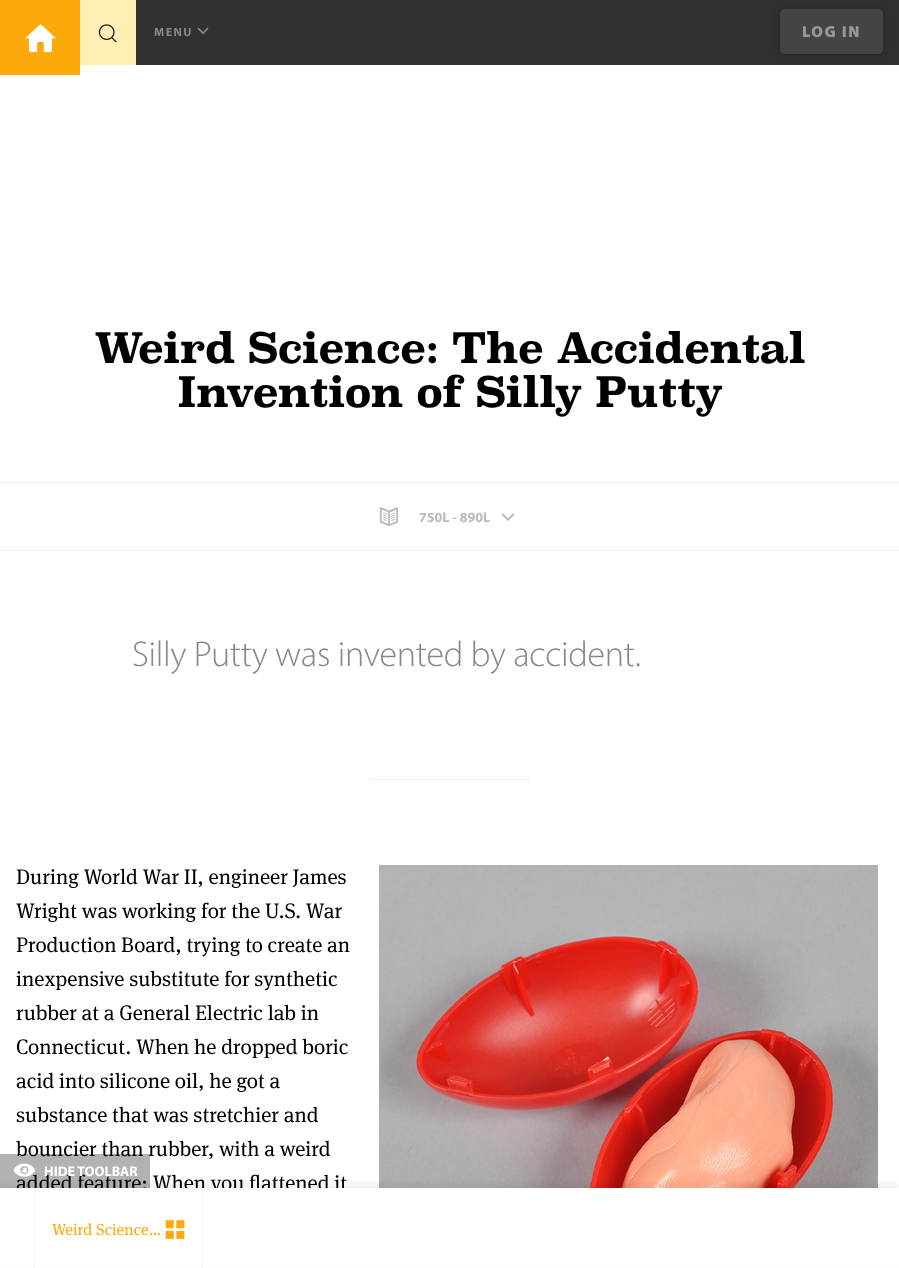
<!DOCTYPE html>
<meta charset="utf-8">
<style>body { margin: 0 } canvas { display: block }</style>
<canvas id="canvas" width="899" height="1268"></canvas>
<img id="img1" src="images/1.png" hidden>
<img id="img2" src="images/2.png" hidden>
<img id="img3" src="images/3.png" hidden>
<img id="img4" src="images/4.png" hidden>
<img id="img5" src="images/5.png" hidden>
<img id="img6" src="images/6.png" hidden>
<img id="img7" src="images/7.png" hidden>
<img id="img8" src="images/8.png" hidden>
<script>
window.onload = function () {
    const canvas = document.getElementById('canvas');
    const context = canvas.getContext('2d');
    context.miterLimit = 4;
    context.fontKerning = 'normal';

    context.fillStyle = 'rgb(255, 255, 255)';
    context.fillRect(0, 0, 899, 1268);
    context.fillStyle = 'rgb(49, 49, 49)';
    context.fillRect(136, 0, 763, 65);
    context.fillStyle = 'rgb(251, 169, 11)';
    context.fillRect(0, 0, 80, 75);
    context.drawImage(document.getElementById('img1'), 25, 24, 31, 28);
    context.fillStyle = 'rgb(255, 239, 181)';
    context.fillRect(80, 0, 56, 65);
    context.drawImage(document.getElementById('img2'), 98, 24, 19, 19);
    context.drawImage(document.getElementById('img3'), 197, 27, 12, 8);
    context.fillStyle = 'rgba(34, 34, 34, 0.9)';
    context.filter = 'blur(3px)';
    context.beginPath();
    context.roundRect(780, 9, 103, 45, 5);
    context.fill();
    context.filter = 'none';
    context.fillStyle = 'rgb(68, 68, 68)';
    context.beginPath();
    context.roundRect(780, 9, 103, 45, 5);
    context.fill();
    context.fillStyle = 'rgb(238, 238, 238)';
    context.fillRect(0, 482, 899, 1);
    context.fillRect(0, 550, 899, 1);
    context.drawImage(document.getElementById('img4'), 379, 507, 20, 20);
    context.drawImage(document.getElementById('img5'), 501, 513, 14, 8);
    context.fillRect(370, 779, 160, 1);
    context.drawImage(document.getElementById('img6'), 379, 865, 499, 323);
    context.fillStyle = 'rgba(0, 0, 0, 0.05)';
    context.filter = 'blur(2.5px)';
    context.beginPath();
    context.rect(0, 1183, 899, 80);
    context.fill();
    context.filter = 'none';
    context.letterSpacing = '1.5px';
    context.font = 'bold 12px Myriad';
    context.fillStyle = 'rgb(136, 136, 136)';
    context.fillText('MENU', 154, 36);
    context.font = '900 16px Myriad';
    context.fillStyle = 'rgb(153, 153, 153)';
    context.fillText('LOG IN', 802, 37);
    context.letterSpacing = '-1.05px';
    context.font = 'bold 42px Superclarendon';
    context.fillStyle = 'rgb(0, 0, 0)';
    context.fillText('Weird Science: The Accidental', 94, 363);
    context.fillText('Invention of Silly Putty', 177, 407);
    context.letterSpacing = '0px';
    context.font = 'bold 14px Myriad';
    context.fillStyle = 'rgb(187, 187, 187)';
    context.fillText('750L - 890L', 419, 522);
    context.letterSpacing = '-0.25px';
    context.font = '300 36px Myriad';
    context.fillStyle = 'rgb(136, 136, 136)';
    context.fillText('Silly Putty was invented by accident.', 132, 666);
    context.letterSpacing = '0px';
    context.font = '21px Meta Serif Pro';
    context.fillStyle = 'rgb(0, 0, 0)';
    context.fillText('During World War II, engineer James', 16, 884);
    context.fillText('Wright was working for the U.S. War', 16, 918);
    context.fillText('Production Board, trying to create an', 16, 952);
    context.fillText('inexpensive substitute for synthetic', 16, 986);
    context.fillText('rubber at a General Electric lab in', 16, 1020);
    context.fillText('Connecticut. When he dropped boric', 16, 1054);
    context.fillText('acid into silicone oil, he got a', 16, 1088);
    context.fillText('substance that was stretchier and', 16, 1122);
    context.fillText('bouncier than rubber, with a weird', 16, 1156);
    context.fillText('added feature: When you flattened it', 16, 1190);
    context.fillStyle = 'rgb(255, 255, 255)';
    context.fillRect(0, 1188, 899, 77);
    context.fillStyle = 'rgba(0, 0, 0, 0.3)';
    context.fillRect(0, 1154, 150, 34);
    context.drawImage(document.getElementById('img7'), 13, 1163, 23, 14);
    context.font = 'bold 14px Myriad';
    context.fillStyle = 'rgb(255, 255, 255)';
    context.fillText('HIDE TOOLBAR', 44, 1176);
    context.fillStyle = 'rgb(244, 244, 244)';
    context.fillRect(34, 1188, 1, 80);
    context.fillRect(202, 1188, 1, 80);
    context.font = '16px Meta Serif Pro';
    context.fillStyle = 'rgb(251, 169, 11)';
    context.fillText('Weird Science…', 52, 1235);
    context.drawImage(document.getElementById('img8'), 165, 1220, 20, 19);
};
</script>
